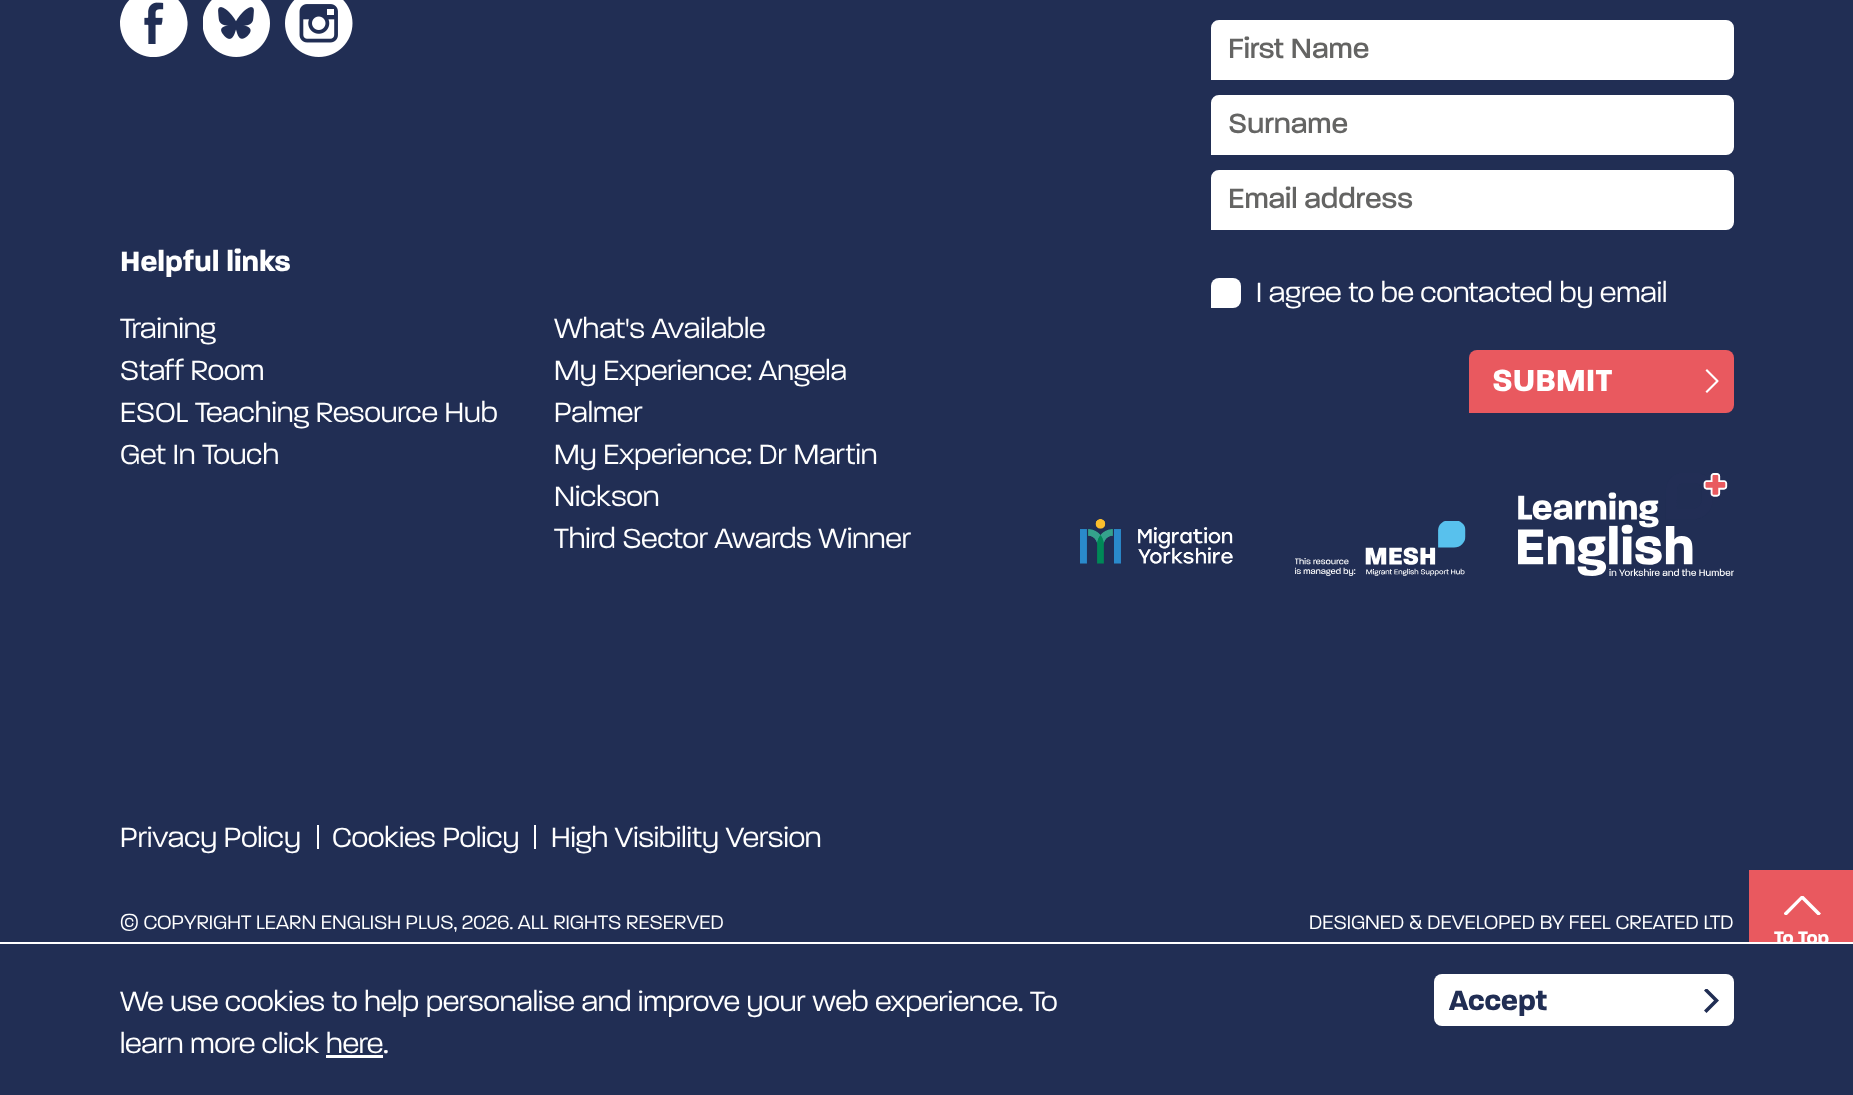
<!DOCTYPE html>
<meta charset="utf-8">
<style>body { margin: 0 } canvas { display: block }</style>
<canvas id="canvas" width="1853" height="1095"></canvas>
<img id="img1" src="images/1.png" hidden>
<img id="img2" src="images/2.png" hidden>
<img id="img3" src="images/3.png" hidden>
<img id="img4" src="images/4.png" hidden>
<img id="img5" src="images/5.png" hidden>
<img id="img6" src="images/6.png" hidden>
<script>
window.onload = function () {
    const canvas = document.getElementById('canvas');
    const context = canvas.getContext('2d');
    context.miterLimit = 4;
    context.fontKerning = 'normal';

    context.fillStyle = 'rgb(33, 46, 84)';
    context.fillRect(0, 0, 1853, 1095);
    context.drawImage(document.getElementById('img1'), 120, 0, 68, 57);
    context.drawImage(document.getElementById('img2'), 203, 0, 67, 57);
    context.drawImage(document.getElementById('img3'), 285, 0, 68, 57);
    context.fillStyle = 'rgb(255, 255, 255)';
    context.beginPath();
    context.roundRect(1212, 21, 521, 58, [7, 7, 7, 0]);
    context.fill();
    context.strokeStyle = 'rgb(255, 255, 255)';
    context.lineWidth = 2;
    context.stroke();
    context.beginPath();
    context.roundRect(1212, 96, 521, 58, [7, 7, 7, 0]);
    context.fill();
    context.stroke();
    context.beginPath();
    context.roundRect(1212, 171, 521, 58, [7, 7, 7, 0]);
    context.fill();
    context.stroke();
    context.beginPath();
    context.roundRect(1211, 278, 30, 30, [8, 8, 8, 0]);
    context.fill();
    context.fillStyle = 'rgb(233, 89, 95)';
    context.beginPath();
    context.roundRect(1469, 350, 265, 63, [8, 8, 8, 0]);
    context.fill();
    context.fillStyle = 'rgb(255, 255, 255)';
    context.beginPath();
    context.moveTo(1707, 393);
    context.lineTo(1705.5, 391.5);
    context.lineTo(1716, 381);
    context.lineTo(1705.5, 370.5);
    context.lineTo(1707, 369);
    context.lineTo(1718.5, 380.5);
    context.lineTo(1718.5, 381.5);
    context.closePath();
    context.fill();
    context.drawImage(document.getElementById('img4'), 1080, 518, 153, 46);
    context.drawImage(document.getElementById('img5'), 1295, 521, 171, 55);
    context.drawImage(document.getElementById('img6'), 1518, 473, 216, 103);
    context.fillRect(317, 825, 2, 24);
    context.fillRect(534, 825, 2, 24);
    context.fillStyle = 'rgb(233, 89, 95)';
    context.fillRect(1749, 870, 104, 72);
    context.save();
    context.beginPath();
    context.rect(1784, 896, 37, 19);
    context.clip();
    context.fillStyle = 'rgb(255, 255, 255)';
    context.beginPath();
    context.moveTo(1821, 913.5);
    context.lineTo(1818.5, 916);
    context.lineTo(1802, 899.5);
    context.lineTo(1786, 916);
    context.lineTo(1783.5, 913.5);
    context.lineTo(1801.5, 895.5);
    context.lineTo(1803, 895.5);
    context.closePath();
    context.fill();
    context.restore();
    context.fillStyle = 'rgb(255, 255, 255)';
    context.fillRect(0, 942, 1853, 2);
    context.fillRect(326, 1055, 57, 3);
    context.beginPath();
    context.roundRect(1434, 974, 300, 52, 8);
    context.fill();
    context.save();
    context.beginPath();
    context.rect(1704, 989, 15, 24);
    context.clip();
    context.fillStyle = 'rgb(33, 46, 84)';
    context.beginPath();
    context.moveTo(1706.5, 988);
    context.lineTo(1704, 990.5);
    context.lineTo(1714, 1000.5);
    context.lineTo(1704, 1010.5);
    context.lineTo(1706.5, 1013);
    context.lineTo(1719, 1000.5);
    context.lineTo(1716.5, 998);
    context.closePath();
    context.fill();
    context.restore();
    context.font = 'bold 30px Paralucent';
    context.fillText('Helpful links', 120, 271);
    context.font = '300 30px Paralucent';
    context.fillText('Training', 120, 338);
    context.fillText('Staff Room', 120, 380);
    context.fillText('ESOL Teaching Resource Hub', 120, 422);
    context.fillText('Get In Touch', 120, 464);
    context.fillText('What\'s Available', 554, 338);
    context.fillText('My Experience: Angela', 554, 380);
    context.fillText('Palmer', 554, 422);
    context.fillText('My Experience: Dr Martin', 554, 464);
    context.fillText('Nickson', 554, 506);
    context.fillText('Third Sector Awards Winner', 554, 548);
    context.font = '500 30px Paralucent';
    context.fillStyle = 'rgb(100, 100, 99)';
    context.fillText('First Name', 1228, 58);
    context.fillText('Surname', 1228, 133);
    context.fillText('Email address', 1228, 208);
    context.font = '300 30px Paralucent';
    context.fillStyle = 'rgb(255, 255, 255)';
    context.fillText('I agree to be contacted by email', 1256, 302);
    context.font = 'bold 33px Paralucent';
    context.fillText('SUBMIT', 1492, 391);
    context.font = '300 30px Paralucent';
    context.fillText('Privacy Policy', 120, 847);
    context.fillText('Cookies Policy', 332, 847);
    context.fillText('High Visibility Version', 551, 847);
    context.font = '300 21px Paralucent';
    context.fillText('© COPYRIGHT LEARN ENGLISH PLUS, 2026. ALL RIGHTS RESERVED', 120, 929);
    context.fillText('DESIGNED & DEVELOPED BY FEEL CREATED LTD', 1309, 929);
    context.font = 'bold 19.5px Paralucent';
    context.fillText('To Top', 1774, 944);
    context.fillStyle = 'rgb(33, 46, 84)';
    context.fillRect(1786, 944, 40, 4);
    context.font = '300 30px Paralucent';
    context.fillStyle = 'rgb(255, 255, 255)';
    context.fillText('We use cookies to help personalise and improve your web experience. To', 120, 1011);
    context.fillText('learn more click here.', 120, 1053);
    context.font = 'bold 30px Paralucent';
    context.fillStyle = 'rgb(33, 46, 84)';
    context.fillText('Accept', 1449, 1010);
};
</script>
